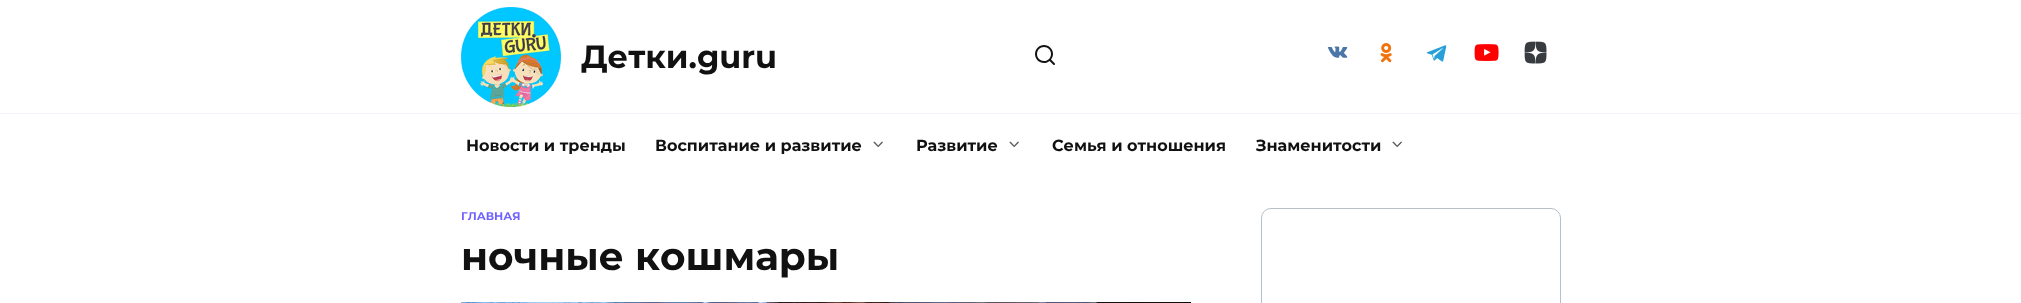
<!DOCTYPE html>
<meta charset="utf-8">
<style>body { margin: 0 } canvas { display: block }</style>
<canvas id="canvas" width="2021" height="303"></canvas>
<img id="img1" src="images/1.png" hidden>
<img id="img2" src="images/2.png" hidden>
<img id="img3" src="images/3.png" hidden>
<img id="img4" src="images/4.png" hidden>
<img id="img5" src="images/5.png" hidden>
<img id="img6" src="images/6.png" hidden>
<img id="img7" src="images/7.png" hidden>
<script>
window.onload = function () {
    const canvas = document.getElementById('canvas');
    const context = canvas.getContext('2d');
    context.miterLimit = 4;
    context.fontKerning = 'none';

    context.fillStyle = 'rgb(255, 255, 255)';
    context.fillRect(0, 0, 2021, 303);
    context.fillStyle = 'rgb(242, 245, 249)';
    context.fillRect(0, 113, 2021, 1);
    context.drawImage(document.getElementById('img1'), 461, 7, 100, 100);
    context.drawImage(document.getElementById('img2'), 1327, 46, 21, 12);
    context.drawImage(document.getElementById('img3'), 1380, 43, 12, 20);
    context.drawImage(document.getElementById('img4'), 1426, 45, 21, 17);
    context.drawImage(document.getElementById('img5'), 1474, 44, 25, 17);
    context.drawImage(document.getElementById('img6'), 1524, 41, 23, 23);
    context.drawImage(document.getElementById('img7'), 461, 302, 730, 1);
    context.beginPath();
    context.roundRect(1261.5, 208.5, 299, 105, 9.5);
    context.strokeStyle = 'rgb(181, 192, 200)';
    context.stroke();
    context.font = 'bold 32px Montserrat';
    context.fillStyle = 'rgb(17, 17, 17)';
    context.fillText('Детки.guru', 581, 68);
    context.font = '24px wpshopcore';
    context.fillText('🔍', 1033, 65);
    context.font = 'bold 16px Montserrat';
    context.fillText('Новости и тренды', 466, 151);
    context.fillText('Воспитание и развитие', 655, 151);
    context.font = '16px wpshopcore';
    context.fillStyle = 'rgb(88, 88, 88)';
    context.fillText('﹀', 870, 151);
    context.font = 'bold 16px Montserrat';
    context.fillStyle = 'rgb(17, 17, 17)';
    context.fillText('Развитие', 916, 151);
    context.font = '16px wpshopcore';
    context.fillStyle = 'rgb(88, 88, 88)';
    context.fillText('﹀', 1006, 151);
    context.font = 'bold 16px Montserrat';
    context.fillStyle = 'rgb(17, 17, 17)';
    context.fillText('Семья и отношения', 1052, 151);
    context.fillText('Знаменитости', 1256, 151);
    context.font = '16px wpshopcore';
    context.fillStyle = 'rgb(88, 88, 88)';
    context.fillText('﹀', 1389, 151);
    context.font = 'bold 11.25px Montserrat';
    context.fillStyle = 'rgb(113, 98, 254)';
    context.fillText('ГЛАВНАЯ', 461, 220);
    context.font = 'bold 39px Montserrat';
    context.fillStyle = 'rgb(17, 17, 17)';
    context.fillText('ночные кошмары', 461, 270);
};
</script>
